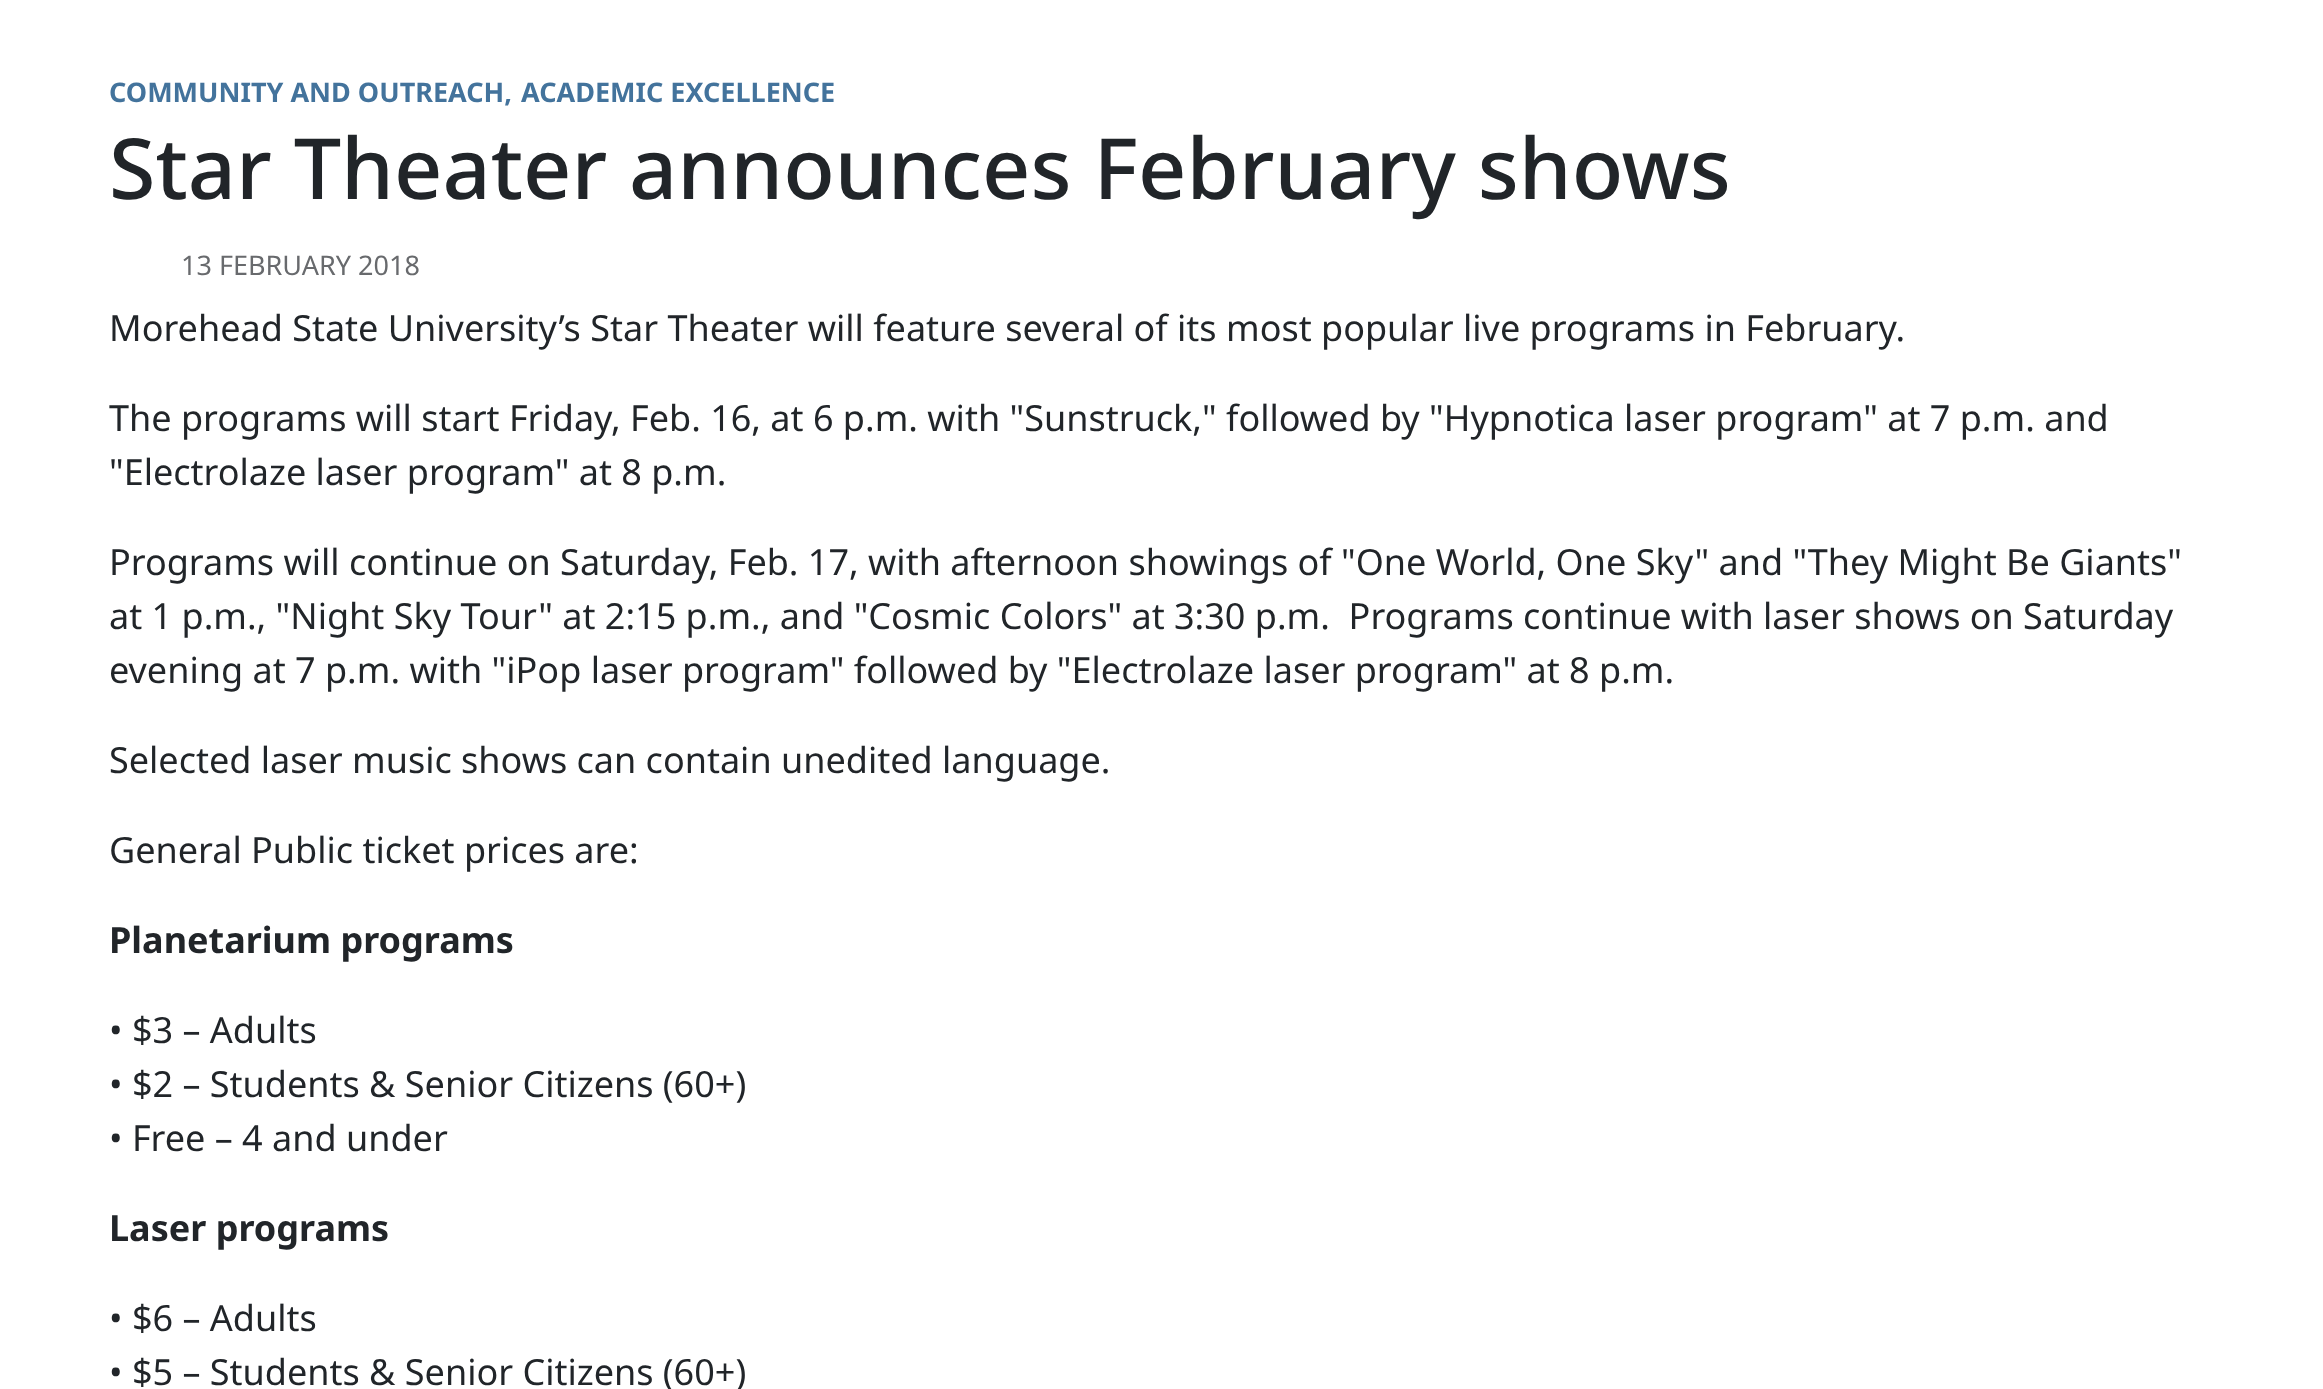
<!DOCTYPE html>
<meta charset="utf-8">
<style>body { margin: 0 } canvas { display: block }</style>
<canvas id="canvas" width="2323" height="1389"></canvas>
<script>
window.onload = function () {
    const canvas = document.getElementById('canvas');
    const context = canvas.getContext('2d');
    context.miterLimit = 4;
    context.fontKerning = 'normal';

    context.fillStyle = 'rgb(255, 255, 255)';
    context.fillRect(0, 0, 2323, 1389);
    context.font = 'bold 27px Noto Sans';
    context.fillStyle = 'rgb(67, 115, 156)';
    context.fillText('COMMUNITY AND OUTREACH,', 109, 102);
    context.fillText('ACADEMIC EXCELLENCE', 521, 102);
    context.font = '500 84.4px Noto Sans';
    context.fillStyle = 'rgb(33, 37, 41)';
    context.fillText('Star Theater announces February shows', 109, 199);
    context.font = '27px Noto Sans';
    context.fillStyle = 'rgb(104, 106, 109)';
    context.fillText('13 FEBRUARY 2018', 181, 275);
    context.font = '36px Noto Sans';
    context.fillStyle = 'rgb(33, 37, 41)';
    context.fillText('Morehead State University’s Star Theater will feature several of its most popular live programs in February.', 109, 341);
    context.fillText('The programs will start Friday, Feb. 16, at 6 p.m. with "Sunstruck," followed by "Hypnotica laser program" at 7 p.m. and', 109, 431);
    context.fillText('"Electrolaze laser program" at 8 p.m.', 109, 485);
    context.fillText('Programs will continue on Saturday, Feb. 17, with afternoon showings of "One World, One Sky" and "They Might Be Giants"', 109, 575);
    context.fillText('at 1 p.m., "Night Sky Tour" at 2:15 p.m., and "Cosmic Colors" at 3:30 p.m.  Programs continue with laser shows on Saturday', 109, 629);
    context.fillText('evening at 7 p.m. with "iPop laser program" followed by "Electrolaze laser program" at 8 p.m.', 109, 683);
    context.fillText('Selected laser music shows can contain unedited language.', 109, 773);
    context.fillText('General Public ticket prices are:', 109, 863);
    context.font = 'bold 36px Noto Sans';
    context.fillText('Planetarium programs', 109, 953);
    context.font = '36px Noto Sans';
    context.fillText('• $3 – Adults', 109, 1043);
    context.fillText('• $2 – Students & Senior Citizens (60+)', 109, 1097);
    context.fillText('• Free – 4 and under', 109, 1151);
    context.font = 'bold 36px Noto Sans';
    context.fillText('Laser programs', 109, 1241);
    context.font = '36px Noto Sans';
    context.fillText('• $6 – Adults', 109, 1331);
    context.fillText('• $5 – Students & Senior Citizens (60+)', 109, 1385);
};
</script>
